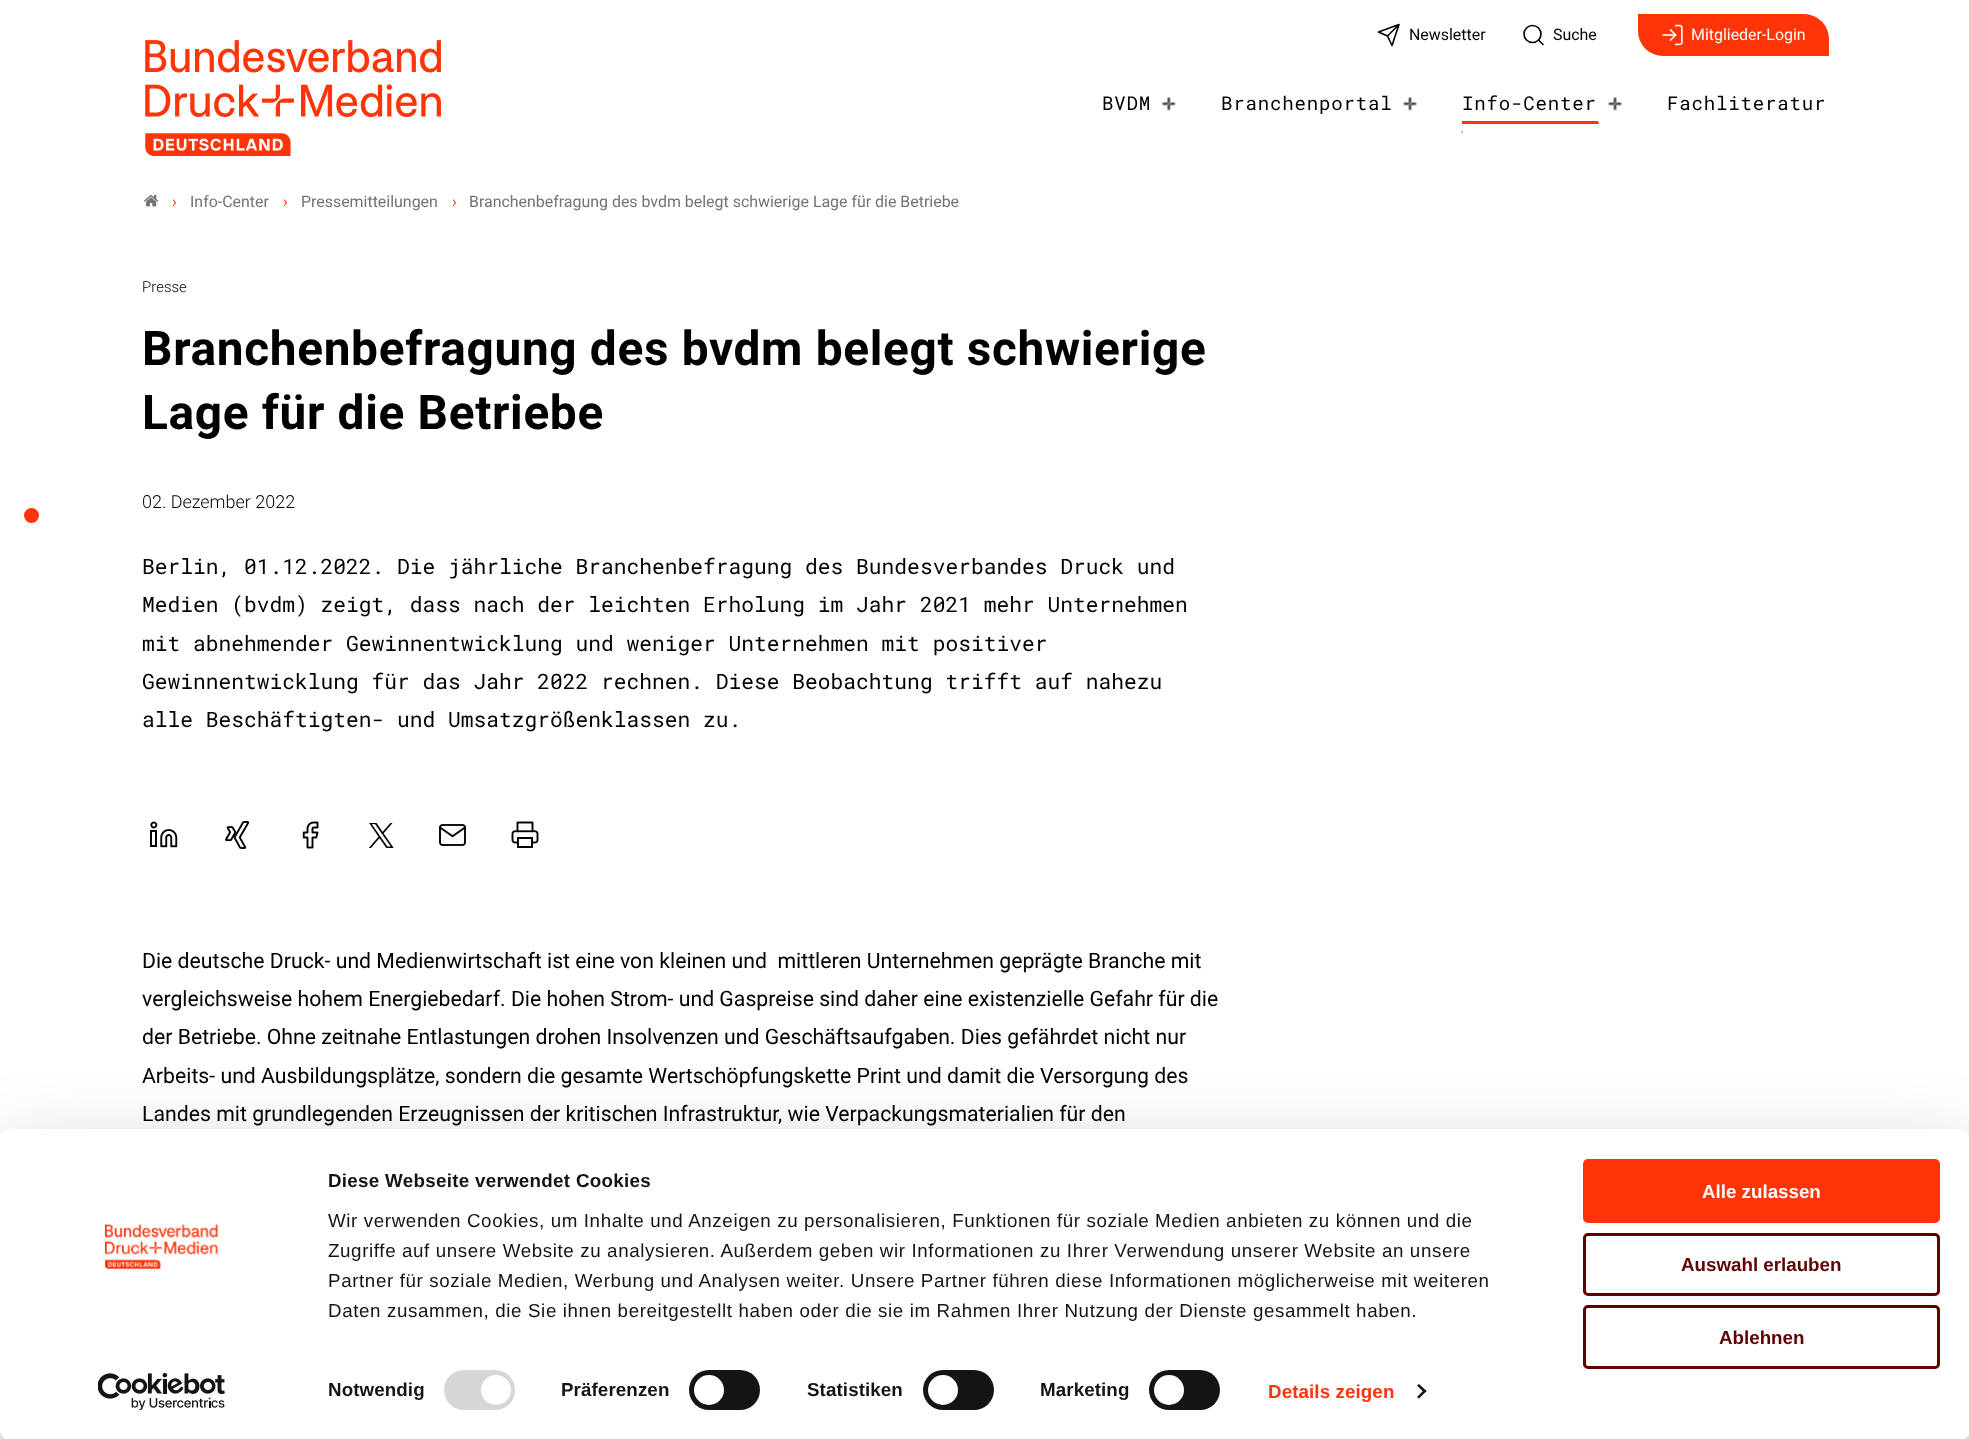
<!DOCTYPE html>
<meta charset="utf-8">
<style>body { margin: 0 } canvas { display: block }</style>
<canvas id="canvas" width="1969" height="1439"></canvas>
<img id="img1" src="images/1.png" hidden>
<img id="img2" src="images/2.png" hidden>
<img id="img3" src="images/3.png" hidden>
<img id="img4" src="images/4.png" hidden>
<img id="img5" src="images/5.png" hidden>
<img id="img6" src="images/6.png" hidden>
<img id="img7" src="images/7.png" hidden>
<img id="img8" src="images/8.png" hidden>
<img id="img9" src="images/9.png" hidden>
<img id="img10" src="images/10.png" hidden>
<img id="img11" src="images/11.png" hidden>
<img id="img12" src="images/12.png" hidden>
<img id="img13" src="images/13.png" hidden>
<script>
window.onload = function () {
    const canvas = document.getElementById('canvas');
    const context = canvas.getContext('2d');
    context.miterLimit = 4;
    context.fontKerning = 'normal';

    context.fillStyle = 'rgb(255, 255, 255)';
    context.fillRect(0, 0, 1969, 1439);
    context.drawImage(document.getElementById('img1'), 145, 40, 296, 116);
    context.beginPath();
    context.moveTo(1399, 24.5);
    context.lineTo(1387.5, 36);
    context.moveTo(1399, 24.5);
    context.lineTo(1392, 45.5);
    context.lineTo(1387.5, 36);
    context.lineTo(1378.5, 32);
    context.closePath();
    context.strokeStyle = 'rgb(0, 0, 0)';
    context.lineWidth = 1.6;
    context.lineCap = 'round';
    context.lineJoin = 'round';
    context.stroke();
    context.beginPath();
    context.arc(1532.5, 34, 8.5, 0, 2 * Math.PI);
    context.stroke();
    context.beginPath();
    context.moveTo(1543, 44.5);
    context.lineTo(1538.5, 40);
    context.stroke();
    context.fillStyle = 'rgb(255, 52, 9)';
    context.beginPath();
    context.roundRect(1638, 14, 191, 42, [0, 25, 0, 25]);
    context.fill();
    context.drawImage(document.getElementById('img2'), 1662, 24, 21, 22);
    context.drawImage(document.getElementById('img3'), 1162, 97, 14, 14);
    context.drawImage(document.getElementById('img4'), 1403, 97, 14, 14);
    context.beginPath();
    context.moveTo(1462.5, 132.5);
    context.lineTo(1461, 132.5);
    context.lineTo(1462.5, 130);
    context.closePath();
    context.fill();
    context.beginPath();
    context.moveTo(1599, 124);
    context.lineTo(1462, 124);
    context.lineTo(1462, 121);
    context.lineTo(1598, 121);
    context.closePath();
    context.fill();
    context.drawImage(document.getElementById('img4'), 1608, 97, 14, 14);
    context.drawImage(document.getElementById('img5'), 144, 195, 15, 12);
    context.beginPath();
    context.arc(31.5, 515.5, 7.5, 0, 2 * Math.PI);
    context.fill();
    context.drawImage(document.getElementById('img6'), 150, 821, 28, 27);
    context.drawImage(document.getElementById('img7'), 225, 821, 25, 28);
    context.drawImage(document.getElementById('img8'), 302, 821, 17, 28);
    context.drawImage(document.getElementById('img9'), 369, 823, 25, 25);
    context.drawImage(document.getElementById('img10'), 439, 824, 27, 22);
    context.drawImage(document.getElementById('img11'), 511, 821, 28, 27);
    context.fillStyle = 'rgba(0, 0, 0, 0.3)';
    context.filter = 'blur(44px)';
    context.beginPath();
    context.roundRect(0, 1166, 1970, 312, 10);
    context.fill();
    context.filter = 'none';
    context.fillStyle = 'rgb(255, 255, 255)';
    context.beginPath();
    context.roundRect(0, 1129, 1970, 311, 10);
    context.fill();
    context.drawImage(document.getElementById('img12'), 105, 1223, 113, 47);
    context.drawImage(document.getElementById('img13'), 98, 1373, 127, 37);
    context.fillStyle = 'rgb(214, 214, 214)';
    context.beginPath();
    context.roundRect(444, 1370, 71, 40, 20);
    context.fill();
    context.fillStyle = 'rgb(255, 255, 255)';
    context.beginPath();
    context.arc(496, 1390, 15, 0, 2 * Math.PI);
    context.fill();
    context.fillStyle = 'rgb(20, 20, 20)';
    context.beginPath();
    context.roundRect(689, 1370, 71, 40, 20);
    context.fill();
    context.fillStyle = 'rgb(255, 255, 255)';
    context.beginPath();
    context.arc(709, 1390, 15, 0, 2 * Math.PI);
    context.fill();
    context.fillStyle = 'rgb(20, 20, 20)';
    context.beginPath();
    context.roundRect(923, 1370, 71, 40, 20);
    context.fill();
    context.fillStyle = 'rgb(255, 255, 255)';
    context.beginPath();
    context.arc(943, 1390, 15, 0, 2 * Math.PI);
    context.fill();
    context.fillStyle = 'rgb(20, 20, 20)';
    context.beginPath();
    context.roundRect(1149, 1370, 71, 40, 20);
    context.fill();
    context.fillStyle = 'rgb(255, 255, 255)';
    context.beginPath();
    context.arc(1169, 1390, 15, 0, 2 * Math.PI);
    context.fill();
    context.fillStyle = 'rgb(20, 20, 20)';
    context.beginPath();
    context.moveTo(1419, 1384);
    context.lineTo(1426.5, 1391);
    context.lineTo(1424.5, 1393);
    context.lineTo(1417, 1385.5);
    context.closePath();
    context.fill();
    context.beginPath();
    context.moveTo(1424.5, 1389.5);
    context.lineTo(1426.5, 1391);
    context.lineTo(1419, 1398.5);
    context.lineTo(1417, 1397);
    context.closePath();
    context.fill();
    context.fillStyle = 'rgb(255, 52, 9)';
    context.beginPath();
    context.roundRect(1584.5, 1160.5, 354, 61, 3.5);
    context.fill();
    context.strokeStyle = 'rgb(255, 52, 9)';
    context.lineWidth = 3;
    context.lineJoin = 'miter';
    context.stroke();
    context.beginPath();
    context.roundRect(1584.5, 1234.5, 354, 60, 3.5);
    context.strokeStyle = 'rgb(96, 0, 0)';
    context.stroke();
    context.beginPath();
    context.roundRect(1584.5, 1306.5, 354, 61, 3.5);
    context.stroke();
    context.font = '15.95px Roboto';
    context.fillStyle = 'rgb(0, 0, 0)';
    context.fillText('Newsletter', 1409, 40);
    context.fillText('Suche', 1553, 40);
    context.fillStyle = 'rgb(255, 255, 255)';
    context.fillText('Mitglieder-Login', 1691, 40);
    context.letterSpacing = '0.8px';
    context.font = '19.1px Roboto Mono';
    context.fillStyle = 'rgb(0, 0, 0)';
    context.fillText('BVDM', 1102, 110);
    context.fillText('Branchenportal', 1221, 110);
    context.fillText('Info-Center', 1462, 110);
    context.fillText('Fachliteratur', 1667, 110);
    context.letterSpacing = '0px';
    context.font = '15.95px Roboto';
    context.fillStyle = 'rgb(255, 52, 9)';
    context.fillText('›', 172, 207);
    context.fillStyle = 'rgb(115, 115, 115)';
    context.fillText('Info-Center', 190, 207);
    context.fillStyle = 'rgb(255, 52, 9)';
    context.fillText('›', 283, 207);
    context.fillStyle = 'rgb(115, 115, 115)';
    context.fillText('Pressemitteilungen', 301, 207);
    context.fillStyle = 'rgb(255, 52, 9)';
    context.fillText('›', 452, 207);
    context.fillStyle = 'rgb(115, 115, 115)';
    context.fillText('Branchenbefragung des bvdm belegt schwierige Lage für die Betriebe', 469, 207);
    context.font = '300 15px Roboto';
    context.fillStyle = 'rgb(0, 0, 0)';
    context.fillText('Presse', 142, 292);
    context.letterSpacing = '0.65px';
    context.font = 'bold 47.8px Roboto';
    context.fillText('Branchenbefragung des bvdm belegt schwierige', 142, 365);
    context.fillText('Lage für die Betriebe', 142, 429);
    context.letterSpacing = '0px';
    context.font = '300 18px Roboto';
    context.fillText('02. Dezember 2022', 142, 508);
    context.font = '21.25px Roboto Mono';
    context.fillText('Berlin, 01.12.2022. Die jährliche Branchenbefragung des Bundesverbandes Druck und', 142, 574);
    context.fillText('Medien (bvdm) zeigt, dass nach der leichten Erholung im Jahr 2021 mehr Unternehmen', 142, 612);
    context.fillText('mit abnehmender Gewinnentwicklung und weniger Unternehmen mit positiver', 142, 651);
    context.fillText('Gewinnentwicklung für das Jahr 2022 rechnen. Diese Beobachtung trifft auf nahezu', 142, 689);
    context.fillText('alle Beschäftigten- und Umsatzgrößenklassen zu.', 142, 727);
    context.font = '21.25px Roboto';
    context.fillText('Die deutsche Druck- und Medienwirtschaft ist eine von kleinen und  mittleren Unternehmen geprägte Branche mit', 142, 968);
    context.fillText('vergleichsweise hohem Energiebedarf. Die hohen Strom- und Gaspreise sind daher eine existenzielle Gefahr für die', 142, 1006);
    context.fillText('der Betriebe. Ohne zeitnahe Entlastungen drohen Insolvenzen und Geschäftsaufgaben. Dies gefährdet nicht nur', 142, 1044);
    context.fillText('Arbeits- und Ausbildungsplätze, sondern die gesamte Wertschöpfungskette Print und damit die Versorgung des', 142, 1083);
    context.fillText('Landes mit grundlegenden Erzeugnissen der kritischen Infrastruktur, wie Verpackungsmaterialien für den', 142, 1121);
    context.letterSpacing = '0.3px';
    context.font = 'bold 18.75px Liberation Sans';
    context.fillStyle = 'rgb(20, 20, 20)';
    context.fillText('Diese Webseite verwendet Cookies', 328, 1187);
    context.letterSpacing = '0.62px';
    context.font = '18.75px Liberation Sans';
    context.fillText('Wir verwenden Cookies, um Inhalte und Anzeigen zu personalisieren, Funktionen für soziale Medien anbieten zu können und die', 328, 1227);
    context.fillText('Zugriffe auf unsere Website zu analysieren. Außerdem geben wir Informationen zu Ihrer Verwendung unserer Website an unsere', 328, 1257);
    context.fillText('Partner für soziale Medien, Werbung und Analysen weiter. Unsere Partner führen diese Informationen möglicherweise mit weiteren', 328, 1287);
    context.fillText('Daten zusammen, die Sie ihnen bereitgestellt haben oder die sie im Rahmen Ihrer Nutzung der Dienste gesammelt haben.', 328, 1317);
    context.letterSpacing = '0.1px';
    context.font = 'bold 18.75px Liberation Sans';
    context.fillText('Notwendig', 328, 1396);
    context.fillText('Präferenzen', 561, 1396);
    context.fillText('Statistiken', 807, 1396);
    context.fillText('Marketing', 1040, 1396);
    context.fillStyle = 'rgb(255, 52, 9)';
    context.fillText('Details zeigen', 1268, 1398);
    context.letterSpacing = '0px';
    context.fillStyle = 'rgb(255, 255, 255)';
    context.fillText('Alle zulassen', 1702, 1198);
    context.fillStyle = 'rgb(96, 0, 0)';
    context.fillText('Auswahl erlauben', 1681, 1271);
    context.fillText('Ablehnen', 1719, 1344);
};
</script>
